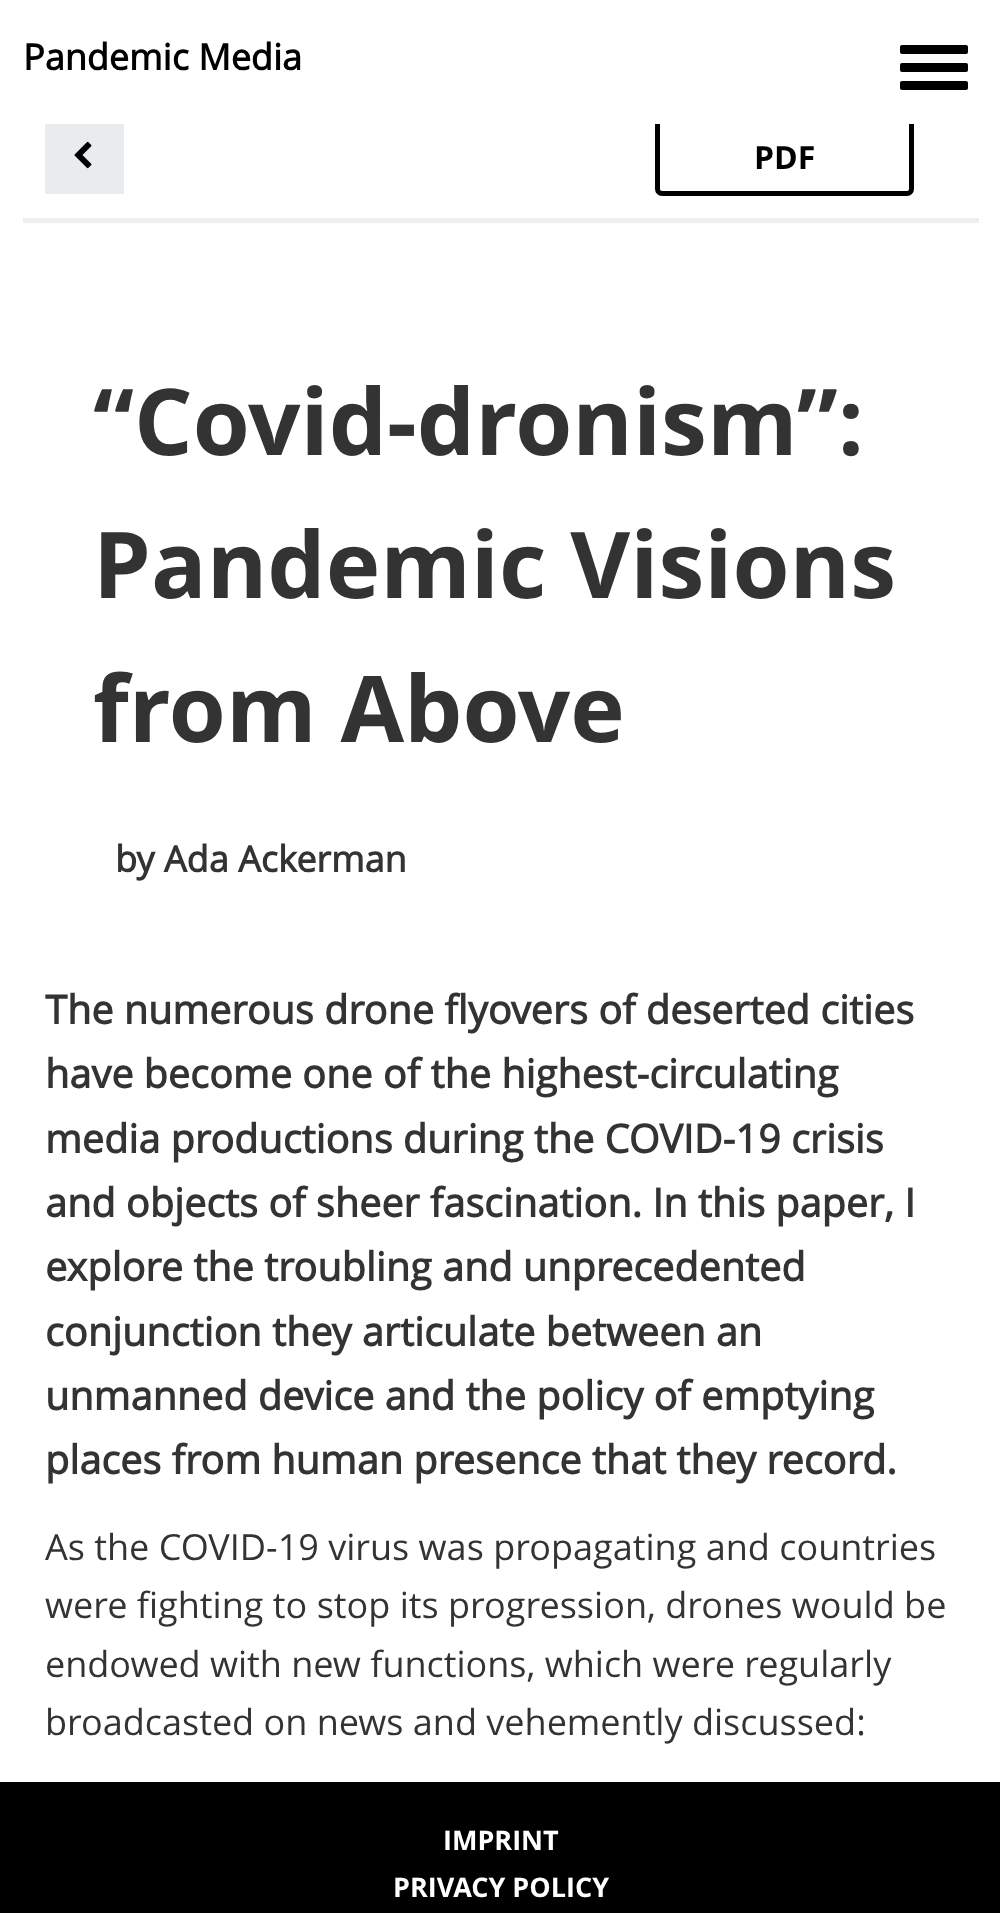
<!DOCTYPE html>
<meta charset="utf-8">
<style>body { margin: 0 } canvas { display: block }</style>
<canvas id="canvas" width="1000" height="1913"></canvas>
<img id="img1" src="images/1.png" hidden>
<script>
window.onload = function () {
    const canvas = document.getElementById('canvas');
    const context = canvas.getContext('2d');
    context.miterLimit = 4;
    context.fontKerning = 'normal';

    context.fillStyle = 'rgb(255, 255, 255)';
    context.fillRect(0, 0, 1000, 1913);
    context.beginPath();
    context.roundRect(657.5, 119.5, 254, 74, 4.5);
    context.strokeStyle = 'rgb(0, 0, 0)';
    context.lineWidth = 5;
    context.stroke();
    context.fillRect(655, 117, 259, 7);
    context.fillStyle = 'rgb(0, 0, 0)';
    context.beginPath();
    context.roundRect(900, 45, 68, 9, 2);
    context.fill();
    context.beginPath();
    context.roundRect(900, 63, 68, 9, 2);
    context.fill();
    context.beginPath();
    context.roundRect(900, 81, 68, 9, 2);
    context.fill();
    context.fillStyle = 'rgb(238, 238, 238)';
    context.fillRect(23, 218, 956, 5);
    context.fillStyle = 'rgb(233, 236, 238)';
    context.fillRect(45, 124, 79, 70);
    context.drawImage(document.getElementById('img1'), 74, 141, 18, 28);
    context.fillStyle = 'rgb(0, 0, 0)';
    context.fillRect(0, 1782, 1000, 131);
    context.font = 'bold 36px "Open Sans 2"';
    context.fillText('Pandemic Media', 23, 70);
    context.font = 'bold 32px Open Sans';
    context.fillText('PDF', 754, 169);
    context.font = 'bold 92.25px Open Sans';
    context.fillStyle = 'rgb(51, 51, 51)';
    context.fillText('“Covid-dronism”:', 93, 455);
    context.fillText('Pandemic Visions', 93, 598);
    context.fillText('from Above', 93, 742);
    context.font = 'bold 36px "Open Sans 2"';
    context.fillText('by Ada Ackerman', 115, 872);
    context.font = 'bold 39.6px "Open Sans 2"';
    context.fillText('The numerous drone flyovers of deserted cities', 45, 1024);
    context.fillText('have become one of the highest-circulating', 45, 1088);
    context.fillText('media productions during the COVID-19 crisis', 45, 1153);
    context.fillText('and objects of sheer fascination. In this paper, I', 45, 1217);
    context.fillText('explore the troubling and unprecedented', 45, 1281);
    context.fillText('conjunction they articulate between an', 45, 1346);
    context.fillText('unmanned device and the policy of emptying', 45, 1410);
    context.fillText('places from human presence that they record.', 45, 1474);
    context.font = '36px Open Sans';
    context.fillText('As the COVID-19 virus was propagating and countries', 45, 1560);
    context.fillText('were fighting to stop its progression, drones would be', 45, 1618);
    context.fillText('endowed with new functions, which were regularly', 45, 1677);
    context.fillText('broadcasted on news and vehemently discussed:', 45, 1735);
    context.font = 'bold 27px Open Sans';
    context.fillStyle = 'rgb(255, 255, 255)';
    context.fillText('IMPRINT', 443, 1850);
    context.fillText('PRIVACY POLICY', 393, 1897);
};
</script>
